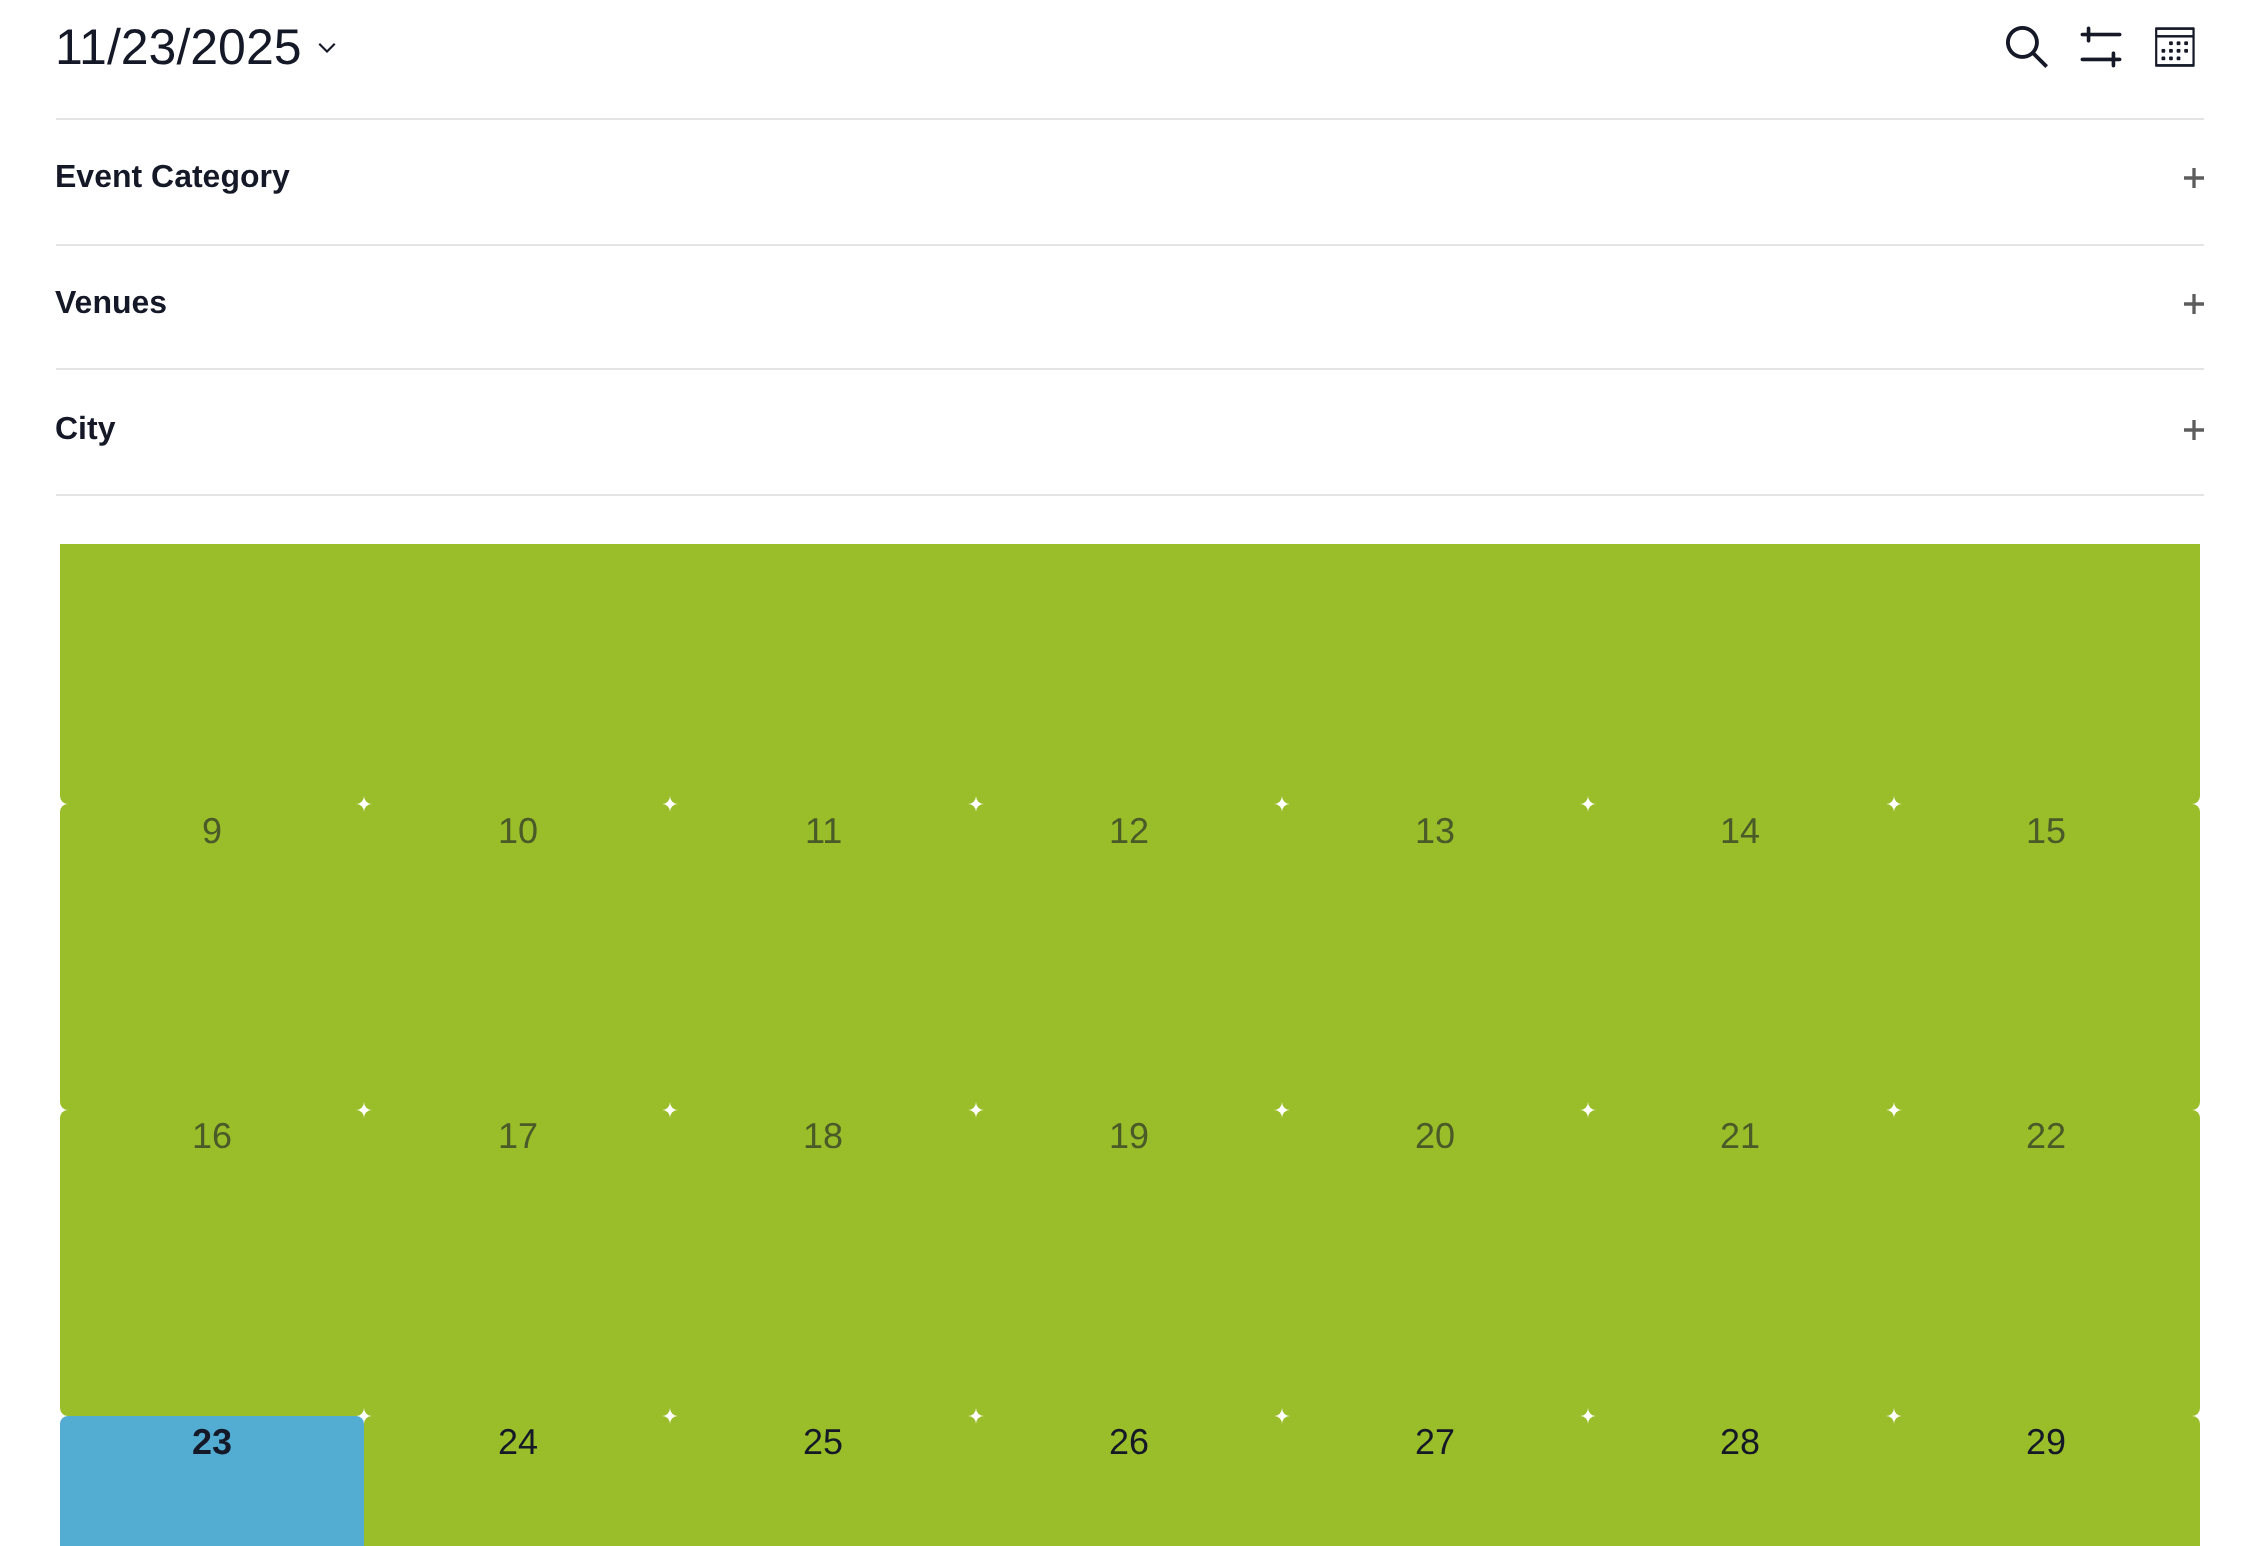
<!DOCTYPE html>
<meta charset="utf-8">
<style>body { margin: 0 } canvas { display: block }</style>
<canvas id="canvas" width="2258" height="1546"></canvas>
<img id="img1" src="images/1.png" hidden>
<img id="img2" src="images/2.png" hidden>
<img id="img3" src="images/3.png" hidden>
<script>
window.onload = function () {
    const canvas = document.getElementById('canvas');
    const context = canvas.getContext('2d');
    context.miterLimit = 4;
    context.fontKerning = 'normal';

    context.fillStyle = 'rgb(255, 255, 255)';
    context.fillRect(0, 0, 2258, 1546);
    context.fillStyle = 'rgb(20, 24, 39)';
    context.beginPath();
    context.moveTo(320, 43);
    context.lineTo(327, 50);
    context.lineTo(334, 43);
    context.lineTo(335.5, 44.5);
    context.lineTo(327, 53);
    context.lineTo(318.5, 44.5);
    context.closePath();
    context.fill('evenodd');
    context.drawImage(document.getElementById('img1'), 2006, 26, 42, 42);
    context.drawImage(document.getElementById('img2'), 2080, 26, 42, 42);
    context.drawImage(document.getElementById('img3'), 2155, 27, 40, 40);
    context.fillStyle = 'rgb(154, 190, 41)';
    context.beginPath();
    context.roundRect(60, 500, 304, 304, 8);
    context.fill();
    context.beginPath();
    context.roundRect(364, 500, 306, 304, 8);
    context.fill();
    context.beginPath();
    context.roundRect(670, 500, 306, 304, 8);
    context.fill();
    context.beginPath();
    context.roundRect(976, 500, 306, 304, 8);
    context.fill();
    context.beginPath();
    context.roundRect(1282, 500, 306, 304, 8);
    context.fill();
    context.beginPath();
    context.roundRect(1588, 500, 306, 304, 8);
    context.fill();
    context.beginPath();
    context.roundRect(1894, 500, 306, 304, 8);
    context.fill();
    context.fillStyle = 'rgb(255, 255, 255)';
    context.fillRect(60, 500, 2140, 44);
    context.fillStyle = 'rgb(228, 228, 228)';
    context.fillRect(56, 494, 2148, 2);
    context.fillRect(56, 118, 2148, 2);
    context.save();
    context.beginPath();
    context.rect(2184, 168, 20, 20);
    context.clip();
    context.beginPath();
    context.moveTo(2202.5, 178);
    context.lineTo(2185.5, 178);
    context.moveTo(2194, 169.5);
    context.lineTo(2194, 186.5);
    context.strokeStyle = 'rgb(93, 93, 93)';
    context.lineWidth = 3.3;
    context.lineCap = 'square';
    context.stroke();
    context.restore();
    context.fillRect(56, 244, 2148, 2);
    context.save();
    context.beginPath();
    context.rect(2184, 294, 20, 20);
    context.clip();
    context.beginPath();
    context.moveTo(2202.5, 304);
    context.lineTo(2185.5, 304);
    context.moveTo(2194, 295.5);
    context.lineTo(2194, 312.5);
    context.strokeStyle = 'rgb(93, 93, 93)';
    context.lineWidth = 3.3;
    context.lineCap = 'square';
    context.stroke();
    context.restore();
    context.fillRect(56, 368, 2148, 2);
    context.save();
    context.beginPath();
    context.rect(2184, 420, 20, 20);
    context.clip();
    context.beginPath();
    context.moveTo(2202.5, 430);
    context.lineTo(2185.5, 430);
    context.moveTo(2194, 421.5);
    context.lineTo(2194, 438.5);
    context.strokeStyle = 'rgb(93, 93, 93)';
    context.lineWidth = 3.3;
    context.lineCap = 'square';
    context.stroke();
    context.restore();
    context.fillStyle = 'rgb(154, 190, 41)';
    context.beginPath();
    context.roundRect(60, 804, 304, 306, 8);
    context.fill();
    context.beginPath();
    context.roundRect(364, 804, 306, 306, 8);
    context.fill();
    context.beginPath();
    context.roundRect(670, 804, 306, 306, 8);
    context.fill();
    context.beginPath();
    context.roundRect(976, 804, 306, 306, 8);
    context.fill();
    context.beginPath();
    context.roundRect(1282, 804, 306, 306, 8);
    context.fill();
    context.beginPath();
    context.roundRect(1588, 804, 306, 306, 8);
    context.fill();
    context.beginPath();
    context.roundRect(1894, 804, 306, 306, 8);
    context.fill();
    context.beginPath();
    context.roundRect(60, 1110, 304, 306, 8);
    context.fill();
    context.beginPath();
    context.roundRect(364, 1110, 306, 306, 8);
    context.fill();
    context.beginPath();
    context.roundRect(670, 1110, 306, 306, 8);
    context.fill();
    context.beginPath();
    context.roundRect(976, 1110, 306, 306, 8);
    context.fill();
    context.beginPath();
    context.roundRect(1282, 1110, 306, 306, 8);
    context.fill();
    context.beginPath();
    context.roundRect(1588, 1110, 306, 306, 8);
    context.fill();
    context.beginPath();
    context.roundRect(1894, 1110, 306, 306, 8);
    context.fill();
    context.fillStyle = 'rgb(83, 172, 210)';
    context.beginPath();
    context.roundRect(60, 1416, 304, 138, 8);
    context.fill();
    context.fillStyle = 'rgb(154, 190, 41)';
    context.beginPath();
    context.roundRect(364, 1416, 306, 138, 8);
    context.fill();
    context.beginPath();
    context.roundRect(670, 1416, 306, 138, 8);
    context.fill();
    context.beginPath();
    context.roundRect(976, 1416, 306, 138, 8);
    context.fill();
    context.beginPath();
    context.roundRect(1282, 1416, 306, 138, 8);
    context.fill();
    context.beginPath();
    context.roundRect(1588, 1416, 306, 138, 8);
    context.fill();
    context.beginPath();
    context.roundRect(1894, 1416, 306, 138, 8);
    context.fill();
    context.font = '50px Liberation Sans';
    context.fillStyle = 'rgb(20, 24, 39)';
    context.fillText('11/23/2025', 55, 64);
    context.font = 'bold 32px Liberation Sans';
    context.fillText('Event Category', 55, 187);
    context.fillText('Venues', 55, 313);
    context.fillText('City', 55, 439);
    context.font = '36px Liberation Sans';
    context.fillStyle = 'rgb(74, 90, 40)';
    context.fillText('9', 202, 843);
    context.fillText('10', 498, 843);
    context.fillText('11', 805, 843);
    context.fillText('12', 1109, 843);
    context.fillText('13', 1415, 843);
    context.fillText('14', 1720, 843);
    context.fillText('15', 2026, 843);
    context.fillText('16', 192, 1148);
    context.fillText('17', 498, 1148);
    context.fillText('18', 803, 1148);
    context.fillText('19', 1109, 1148);
    context.fillText('20', 1415, 1148);
    context.fillText('21', 1720, 1148);
    context.fillText('22', 2026, 1148);
    context.font = 'bold 36px Liberation Sans';
    context.fillStyle = 'rgb(20, 24, 39)';
    context.fillText('23', 192, 1454);
    context.font = '36px Liberation Sans';
    context.fillText('24', 498, 1454);
    context.fillText('25', 803, 1454);
    context.fillText('26', 1109, 1454);
    context.fillText('27', 1415, 1454);
    context.fillText('28', 1720, 1454);
    context.fillText('29', 2026, 1454);
};
</script>
